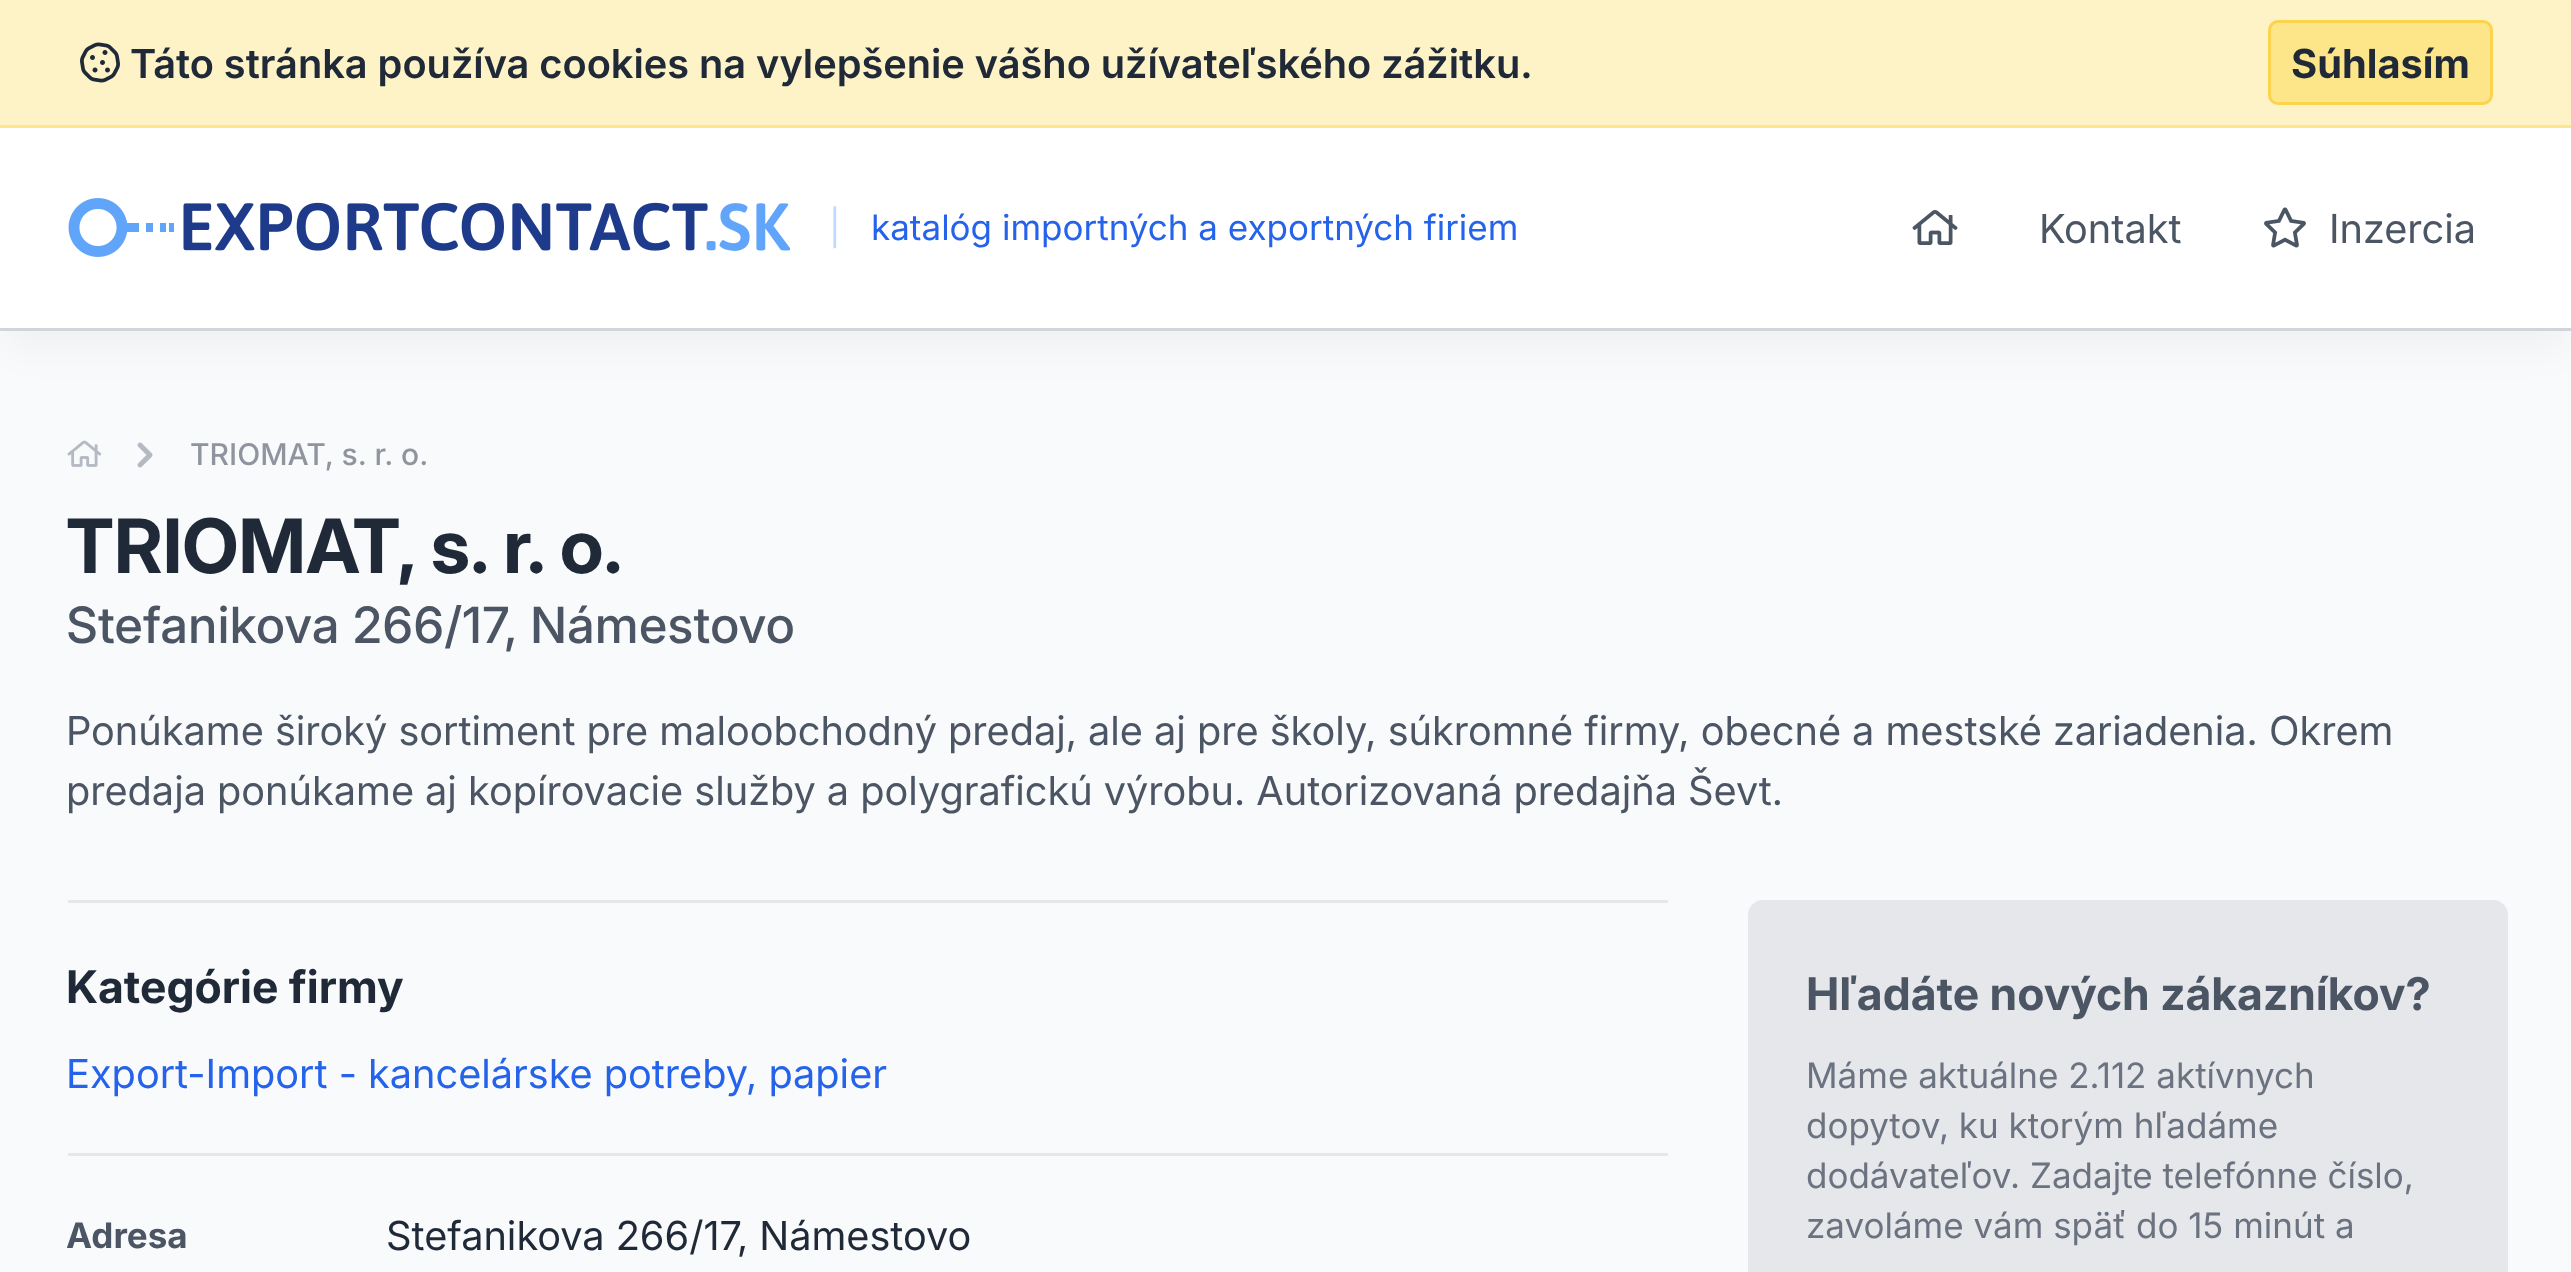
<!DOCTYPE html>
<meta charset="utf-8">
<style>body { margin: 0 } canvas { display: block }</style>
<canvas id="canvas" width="2571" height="1272"></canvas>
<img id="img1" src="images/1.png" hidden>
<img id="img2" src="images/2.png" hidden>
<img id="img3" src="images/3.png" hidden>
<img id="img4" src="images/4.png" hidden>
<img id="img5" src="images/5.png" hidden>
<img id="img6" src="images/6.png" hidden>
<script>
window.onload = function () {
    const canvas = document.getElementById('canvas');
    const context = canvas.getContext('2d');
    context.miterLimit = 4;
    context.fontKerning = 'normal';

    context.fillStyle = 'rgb(254, 243, 199)';
    context.fillRect(0, 0, 2571, 1272);
    context.fillStyle = 'rgb(253, 230, 138)';
    context.fillRect(0, 125, 2571, 3);
    context.drawImage(document.getElementById('img1'), 80, 42, 40, 41);
    context.fillStyle = 'rgb(249, 250, 251)';
    context.fillRect(0, 331, 2571, 941);
    context.fillStyle = 'rgba(0, 0, 0, 0.04)';
    context.filter = 'blur(19px)';
    context.beginPath();
    context.rect(8, 160, 2557, 188);
    context.fill();
    context.filter = 'none';
    context.fillStyle = 'rgb(253, 230, 138)';
    context.beginPath();
    context.roundRect(2269.5, 21.5, 222, 82, 8.5);
    context.fill();
    context.strokeStyle = 'rgb(252, 211, 77)';
    context.lineWidth = 3;
    context.stroke();
    context.fillStyle = 'rgb(255, 255, 255)';
    context.fillRect(0, 128, 2571, 200);
    context.fillStyle = 'rgb(209, 213, 219)';
    context.fillRect(0, 328, 2571, 3);
    context.drawImage(document.getElementById('img2'), 68, 198, 722, 59);
    context.drawImage(document.getElementById('img3'), 1912, 210, 46, 35);
    context.drawImage(document.getElementById('img4'), 2264, 207, 42, 41);
    context.drawImage(document.getElementById('img5'), 67, 440, 35, 27);
    context.drawImage(document.getElementById('img6'), 137, 442, 16, 26);
    context.fillStyle = 'rgb(229, 231, 235)';
    context.fillRect(68, 900, 1600, 3);
    context.fillRect(68, 1153, 1600, 3);
    context.beginPath();
    context.roundRect(1748, 900, 760, 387, 15);
    context.fill();
    context.font = '600 40px Inter';
    context.fillStyle = 'rgb(31, 41, 55)';
    context.fillText('Táto stránka používa cookies na vylepšenie vášho užívateľského zážitku.', 130, 78);
    context.font = 'bold 40px Inter';
    context.fillText('Súhlasím', 2291, 78);
    context.font = '35px Inter';
    context.fillStyle = 'rgb(191, 219, 254)';
    context.fillText('|', 829, 240);
    context.fillStyle = 'rgb(37, 99, 235)';
    context.fillText('katalóg importných a exportných firiem', 871, 240);
    context.font = '40px "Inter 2"';
    context.fillStyle = 'rgb(75, 85, 99)';
    context.fillText('Kontakt', 2039, 243);
    context.fillText('Inzercia', 2329, 243);
    context.font = '500 30px "Inter 2"';
    context.fillStyle = 'rgb(143, 148, 159)';
    context.fillText('TRIOMAT, s. r. o.', 190, 465);
    context.font = 'bold 75px "Inter 2"';
    context.fillStyle = 'rgb(31, 41, 55)';
    context.fillText('TRIOMAT, s. r. o.', 66, 573);
    context.font = '500 50px Inter';
    context.fillStyle = 'rgb(75, 85, 99)';
    context.fillText('Stefanikova 266/17, Námestovo', 66, 643);
    context.font = '40px "Inter 2"';
    context.fillText('Ponúkame široký sortiment pre maloobchodný predaj, ale aj pre školy, súkromné firmy, obecné a mestské zariadenia. Okrem', 66, 745);
    context.fillText('predaja ponúkame aj kopírovacie služby a polygrafickú výrobu. Autorizovaná predajňa Ševt.', 66, 805);
    context.font = 'bold 45px "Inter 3"';
    context.fillStyle = 'rgb(31, 41, 55)';
    context.fillText('Kategórie firmy', 66, 1003);
    context.font = '40px "Inter 2"';
    context.fillStyle = 'rgb(37, 99, 235)';
    context.fillText('Export-Import - kancelárske potreby, papier', 66, 1088);
    context.font = 'bold 35px "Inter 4"';
    context.fillStyle = 'rgb(75, 85, 99)';
    context.fillText('Adresa', 66, 1248);
    context.font = '40px "Inter 2"';
    context.fillStyle = 'rgb(31, 41, 55)';
    context.fillText('Stefanikova 266/17, Námestovo', 386, 1250);
    context.font = 'bold 45px "Inter 3"';
    context.fillStyle = 'rgb(75, 85, 99)';
    context.fillText('Hľadáte nových zákazníkov?', 1806, 1010);
    context.font = '35px Inter';
    context.fillStyle = 'rgb(107, 114, 128)';
    context.fillText('Máme aktuálne 2.112 aktívnych', 1806, 1088);
    context.fillText('dopytov, ku ktorým hľadáme', 1806, 1138);
    context.fillText('dodávateľov. Zadajte telefónne číslo,', 1806, 1188);
    context.fillText('zavoláme vám späť do 15 minút a', 1806, 1238);
};
</script>
